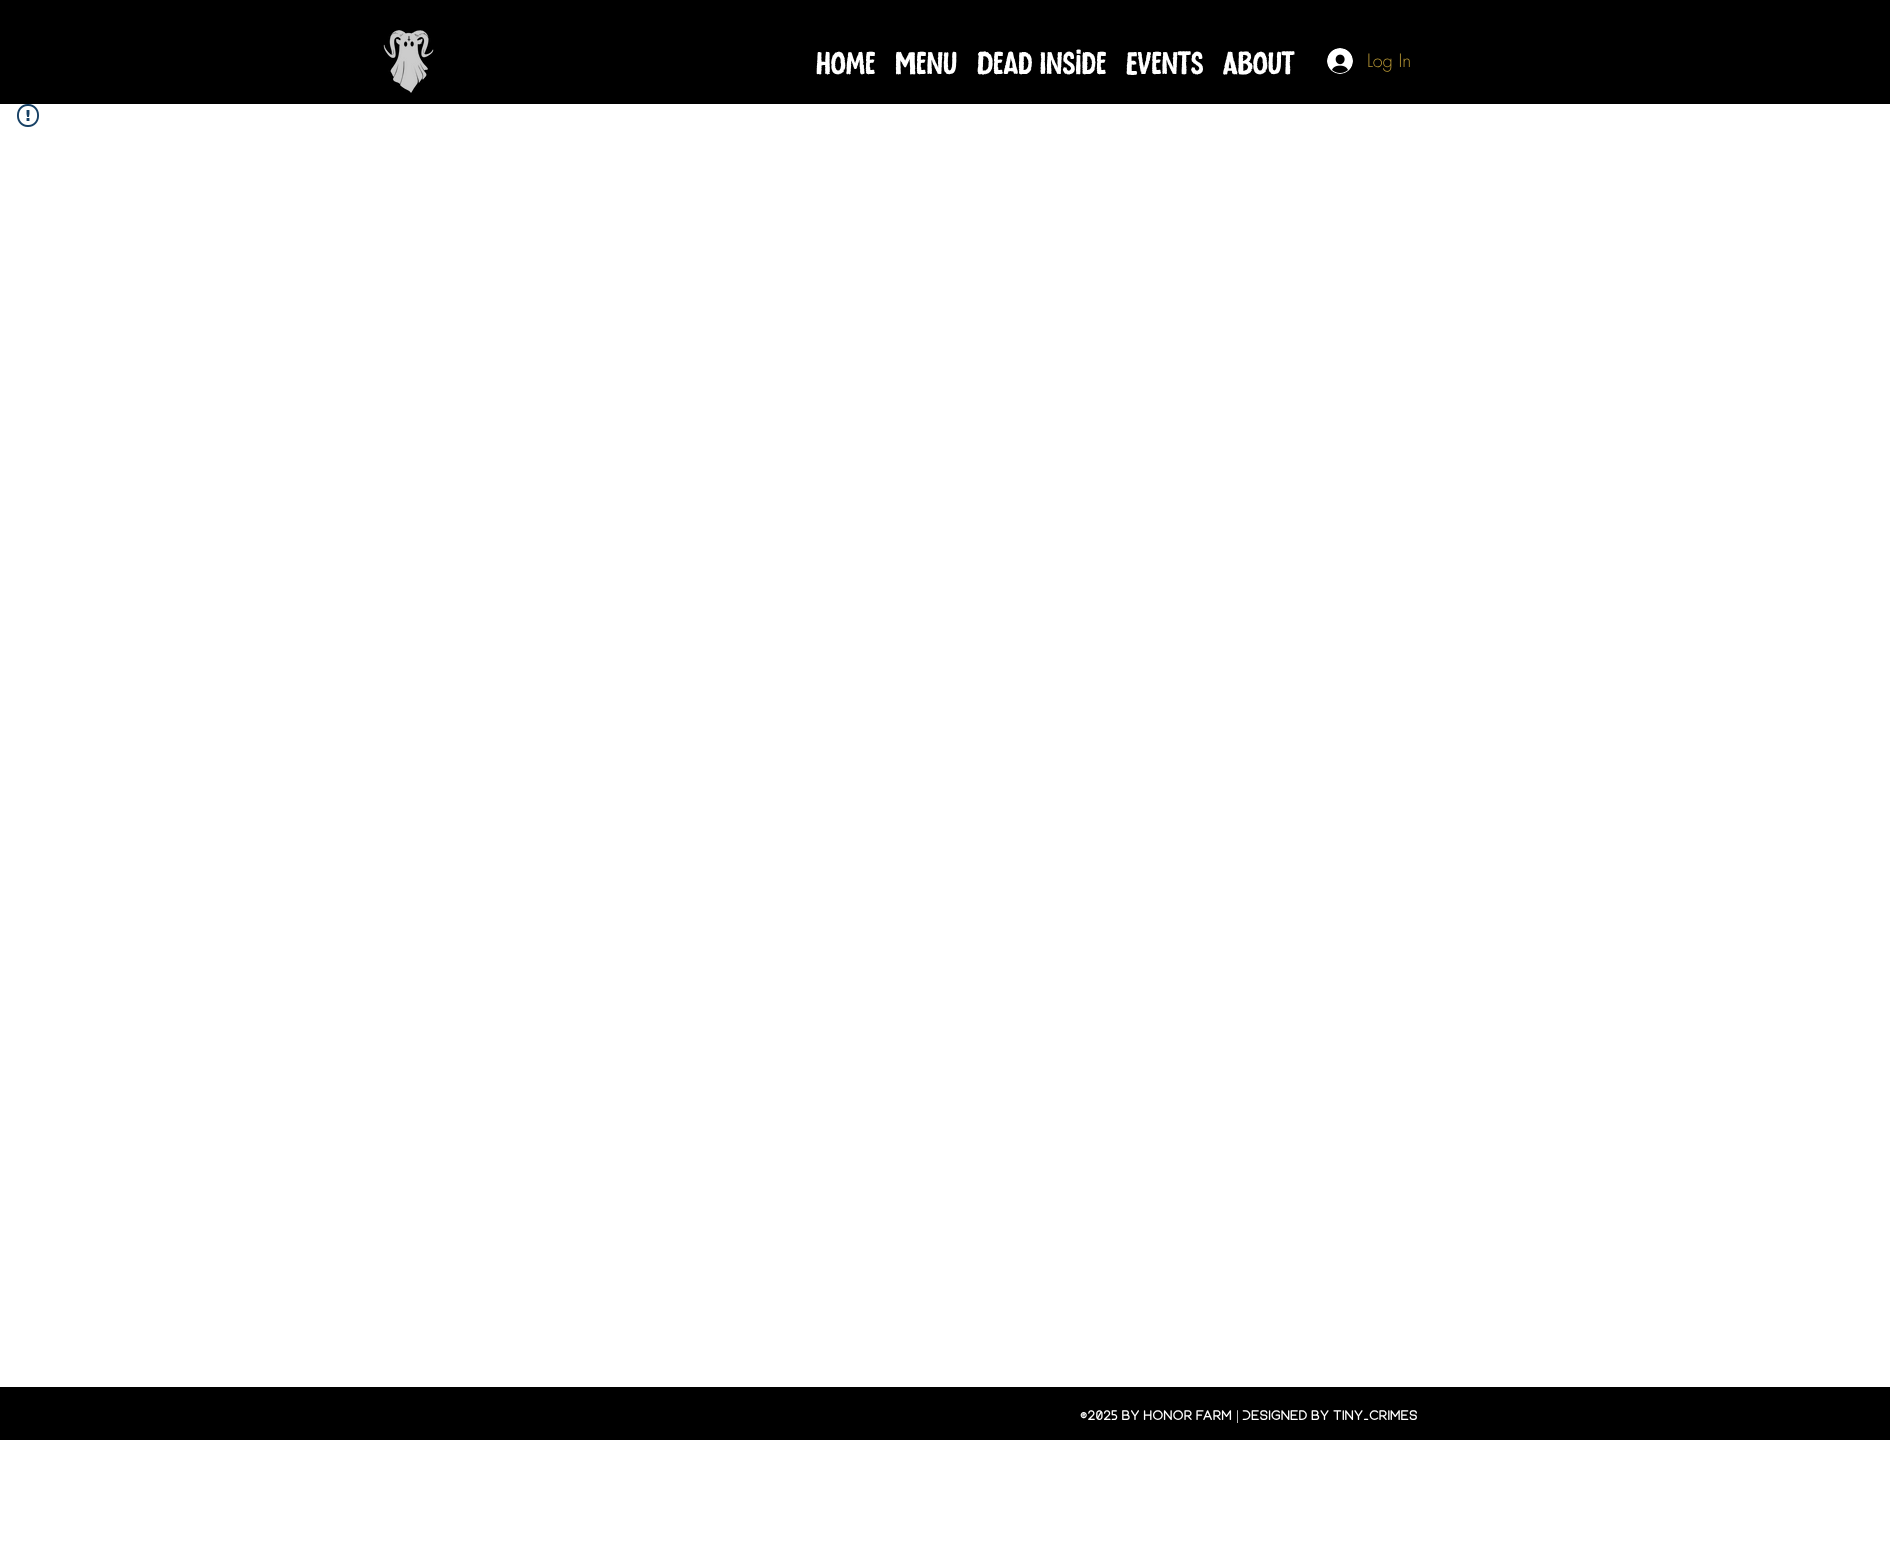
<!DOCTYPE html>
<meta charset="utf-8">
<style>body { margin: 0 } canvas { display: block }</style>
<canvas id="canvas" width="1890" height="1549"></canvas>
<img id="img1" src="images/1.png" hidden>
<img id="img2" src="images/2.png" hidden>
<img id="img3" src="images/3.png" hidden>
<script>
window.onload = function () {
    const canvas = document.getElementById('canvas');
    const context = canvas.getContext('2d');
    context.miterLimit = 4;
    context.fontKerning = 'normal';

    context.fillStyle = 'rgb(255, 255, 255)';
    context.fillRect(0, 0, 1890, 1549);
    context.fillStyle = 'rgb(0, 0, 0)';
    context.fillRect(0, 0, 1890, 104);
    context.drawImage(document.getElementById('img1'), 383, 30, 51, 63);
    context.drawImage(document.getElementById('img2'), 1327, 48, 26, 26);
    context.drawImage(document.getElementById('img3'), 17, 104, 22, 23);
    context.fillRect(0, 1387, 1890, 53);
    context.font = '26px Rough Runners';
    context.fillStyle = 'rgb(255, 255, 255)';
    context.fillText('Home', 816, 74);
    context.fillText('Menu', 895, 74);
    context.fillText('Dead Inside', 977, 74);
    context.fillText('Events', 1126, 74);
    context.fillText('About', 1223, 74);
    context.font = '300 18px futura';
    context.fillStyle = 'rgb(180, 148, 52)';
    context.fillText('Log In', 1367, 67);
    context.font = 'bold 14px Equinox';
    context.fillStyle = 'rgb(255, 255, 255)';
    context.fillText('©2025 by Honor Farm', 1080, 1420);
    context.font = '14px Liberation Serif';
    context.fillText('|', 1236, 1420);
    context.font = 'bold 14px Equinox';
    context.fillText('Designed by Tiny_Crimes', 1242, 1420);
};
</script>
